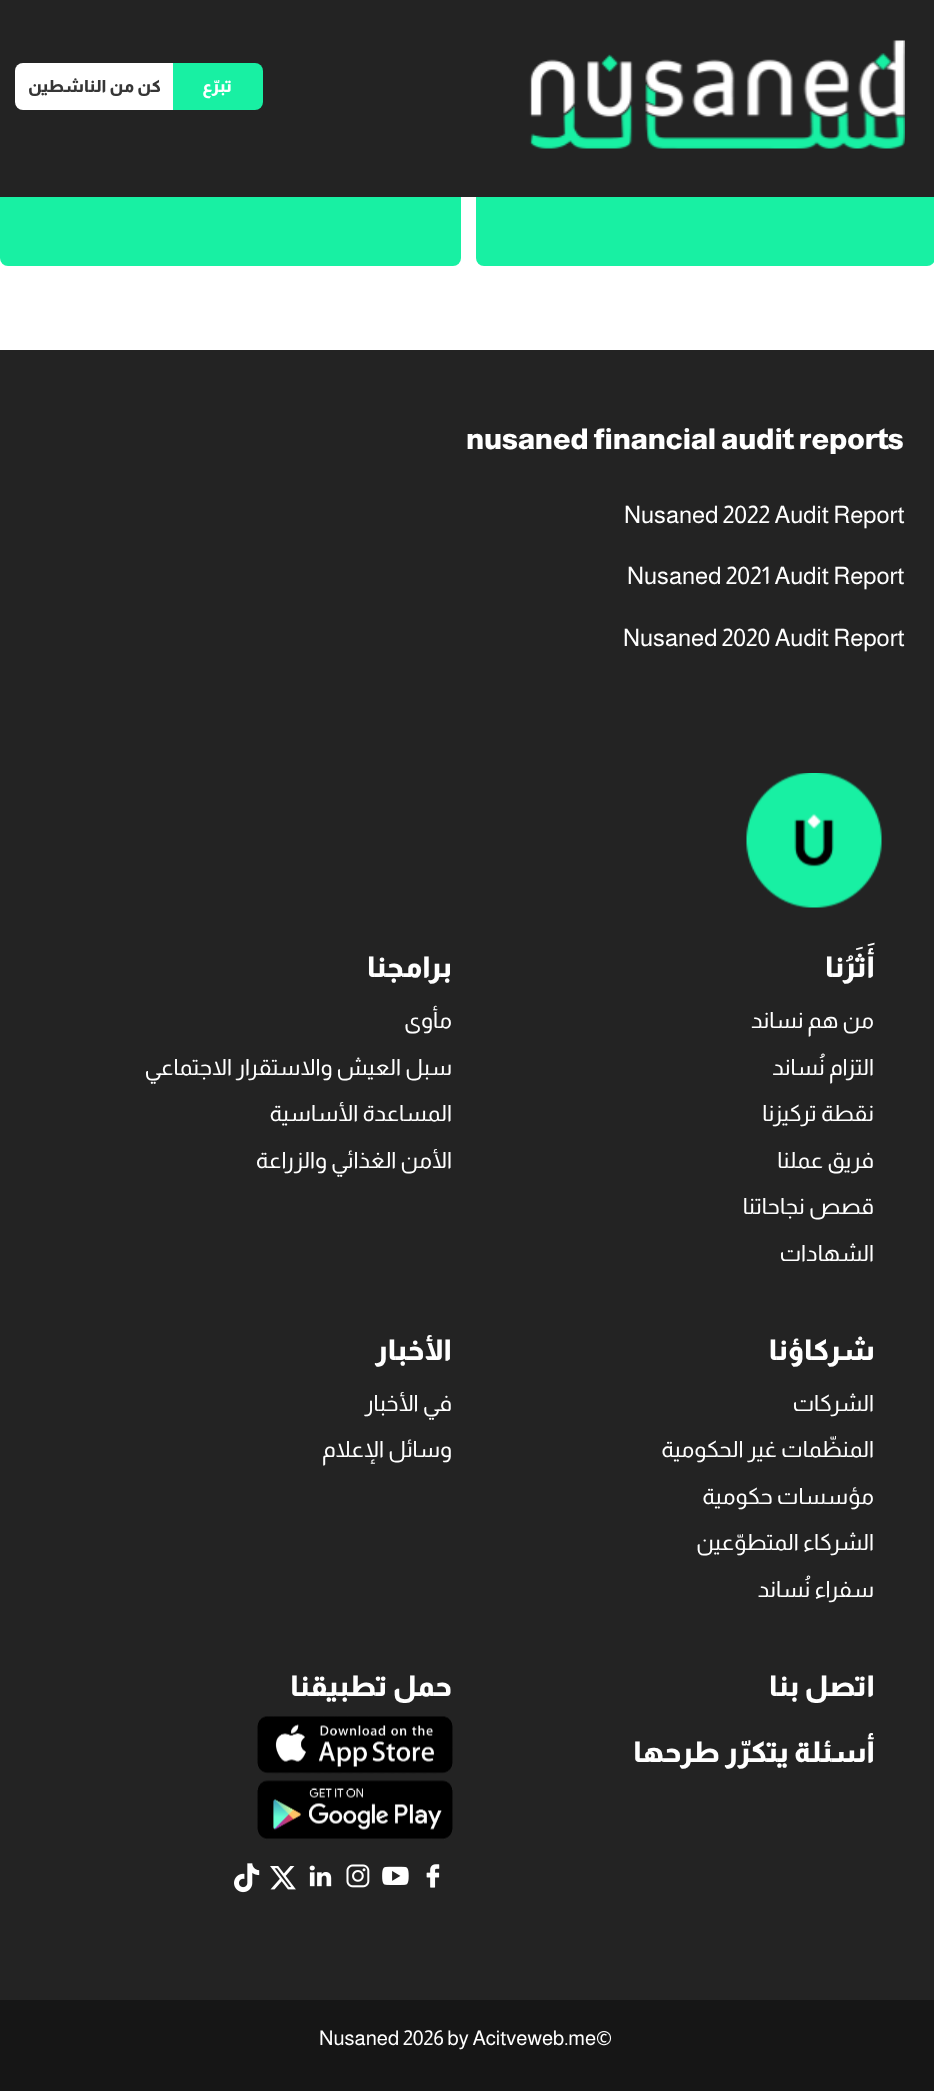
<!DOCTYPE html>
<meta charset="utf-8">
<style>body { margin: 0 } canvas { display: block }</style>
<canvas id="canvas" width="934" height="2091"></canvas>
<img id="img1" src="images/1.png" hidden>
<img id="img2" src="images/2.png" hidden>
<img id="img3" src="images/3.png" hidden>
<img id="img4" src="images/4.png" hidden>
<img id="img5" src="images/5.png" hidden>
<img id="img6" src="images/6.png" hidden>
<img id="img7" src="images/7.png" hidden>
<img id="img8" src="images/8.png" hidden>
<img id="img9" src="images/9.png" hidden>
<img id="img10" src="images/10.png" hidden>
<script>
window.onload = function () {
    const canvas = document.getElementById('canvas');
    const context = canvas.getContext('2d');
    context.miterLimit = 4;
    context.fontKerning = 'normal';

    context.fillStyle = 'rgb(22, 22, 22)';
    context.fillRect(0, 0, 934, 2091);
    context.fillStyle = 'rgb(255, 255, 255)';
    context.fillRect(0, 197, 934, 153);
    context.fillStyle = 'rgb(24, 240, 163)';
    context.beginPath();
    context.roundRect(476, 83, 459, 183, 8);
    context.fill();
    context.beginPath();
    context.roundRect(0, 83, 461, 183, 8);
    context.fill();
    context.fillStyle = 'rgb(35, 35, 35)';
    context.fillRect(0, 0, 934, 197);
    context.drawImage(document.getElementById('img1'), 529, 40, 376, 109);
    context.fillStyle = 'rgb(24, 240, 163)';
    context.beginPath();
    context.roundRect(173, 63, 90, 47, [0, 8, 8, 0]);
    context.fill();
    context.fillStyle = 'rgb(255, 255, 255)';
    context.beginPath();
    context.roundRect(15, 63, 158, 47, [8, 0, 0, 8]);
    context.fill();
    context.fillStyle = 'rgb(35, 35, 35)';
    context.fillRect(0, 350, 934, 1650);
    context.drawImage(document.getElementById('img2'), 746, 773, 136, 135);
    context.drawImage(document.getElementById('img3'), 257, 1716, 196, 58);
    context.drawImage(document.getElementById('img4'), 257, 1780, 196, 60);
    context.drawImage(document.getElementById('img5'), 426, 1864, 14, 24);
    context.drawImage(document.getElementById('img6'), 382, 1866, 27, 19);
    context.drawImage(document.getElementById('img7'), 346, 1864, 24, 24);
    context.drawImage(document.getElementById('img8'), 309, 1865, 23, 22);
    context.drawImage(document.getElementById('img9'), 270, 1866, 26, 24);
    context.drawImage(document.getElementById('img10'), 234, 1863, 26, 30);
    context.direction = 'rtl';
    context.font = '800 16.75px Almarai';
    context.fillStyle = 'rgb(255, 255, 255)';
    context.fillText('تبرّع', 232, 92);
    context.fillStyle = 'rgb(54, 54, 54)';
    context.fillText('كن من الناشطين', 161, 92);
    context.direction = 'ltr';
    context.font = '800 28.75px Almarai';
    context.fillStyle = 'rgb(255, 255, 255)';
    context.fillText('nusaned financial audit reports', 466, 449);
    context.font = '24px Almarai';
    context.fillText('Nusaned 2022 Audit Report', 624, 523);
    context.fillText('Nusaned 2021 Audit Report', 627, 584);
    context.fillText('Nusaned 2020 Audit Report', 623, 646);
    context.direction = 'rtl';
    context.font = '800 28.75px Almarai';
    context.fillText('أَثَرُنا', 875, 977);
    context.font = '22.5px Almarai';
    context.fillText('من هم نساند', 874, 1028);
    context.fillText('التزام نُساند', 874, 1075);
    context.fillText('نقطة تركيزنا', 874, 1121);
    context.fillText('فريق عملنا', 874, 1168);
    context.fillText('قصص نجاحاتنا', 874, 1214);
    context.fillText('الشهادات', 874, 1261);
    context.font = '800 28.75px Almarai';
    context.fillText('برامجنا', 452, 977);
    context.font = '22.5px Almarai';
    context.fillText('مأوى', 452, 1028);
    context.fillText('سبل العيش والاستقرار الاجتماعي', 452, 1075);
    context.fillText('المساعدة الأساسية', 452, 1121);
    context.fillText('الأمن الغذائي والزراعة', 452, 1168);
    context.font = '800 28.75px Almarai';
    context.fillText('شركاؤنا', 875, 1360);
    context.font = '22.5px Almarai';
    context.fillText('الشركات', 874, 1411);
    context.fillText('المنظّمات غير الحكومية', 874, 1457);
    context.fillText('مؤسسات حكومية', 874, 1504);
    context.fillText('الشركاء المتطوّعين', 874, 1550);
    context.fillText('سفراء نُساند', 874, 1597);
    context.font = '800 28.75px Almarai';
    context.fillText('الأخبار', 452, 1360);
    context.font = '22.5px Almarai';
    context.fillText('في الأخبار', 452, 1411);
    context.fillText('وسائل الإعلام', 452, 1457);
    context.font = '800 28.75px Almarai';
    context.fillText('اتصل بنا', 875, 1696);
    context.fillText('أسئلة يتكرّر طرحها', 875, 1762);
    context.fillText('حمل تطبيقنا', 452, 1696);
    context.direction = 'ltr';
    context.font = '20.4px Almarai';
    context.fillText('©', 596, 2045);
    context.fillText('Nusaned 2026 by Acitveweb.me', 319, 2045);
};
</script>
